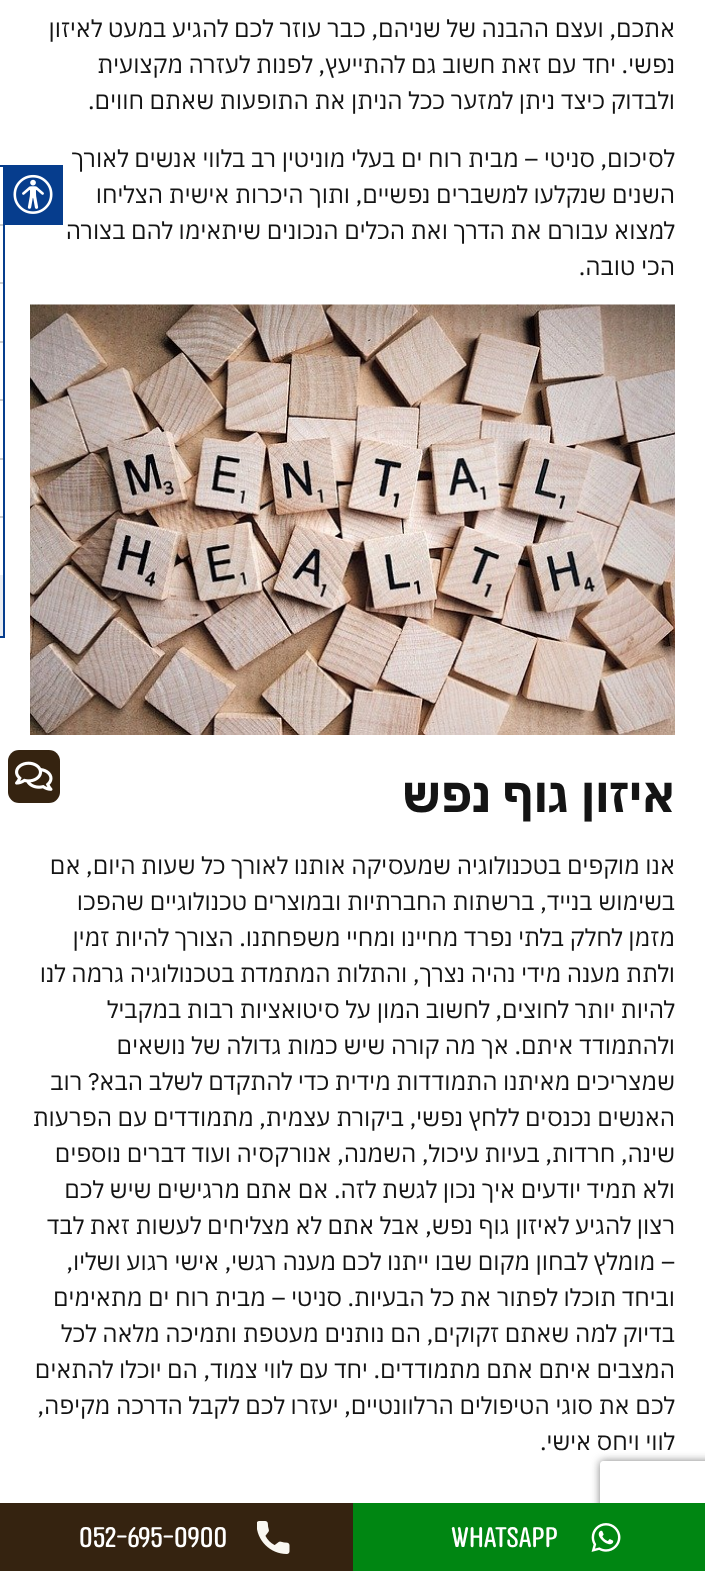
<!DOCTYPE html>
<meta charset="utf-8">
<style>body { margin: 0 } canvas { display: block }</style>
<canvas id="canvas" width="705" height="1571"></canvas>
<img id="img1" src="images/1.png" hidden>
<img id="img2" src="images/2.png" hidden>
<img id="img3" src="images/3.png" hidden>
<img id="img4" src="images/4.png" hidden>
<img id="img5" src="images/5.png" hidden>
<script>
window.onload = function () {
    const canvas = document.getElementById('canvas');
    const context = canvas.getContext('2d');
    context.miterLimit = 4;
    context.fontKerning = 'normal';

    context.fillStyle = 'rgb(255, 255, 255)';
    context.fillRect(0, 0, 705, 1571);
    context.drawImage(document.getElementById('img1'), 30, 304, 645, 431);
    context.fillStyle = 'rgb(6, 61, 141)';
    context.fillRect(0, 165, 5, 2);
    context.fillRect(3, 225, 2, 413);
    context.fillRect(0, 636, 5, 2);
    context.fillRect(3, 165, 60, 60);
    context.drawImage(document.getElementById('img2'), 13, 174, 40, 40);
    context.fillStyle = 'rgb(204, 204, 204)';
    context.fillRect(0, 224, 3, 2);
    context.fillRect(0, 282, 3, 2);
    context.fillRect(0, 341, 3, 2);
    context.fillRect(0, 399, 3, 2);
    context.fillRect(0, 458, 3, 2);
    context.fillRect(0, 516, 3, 2);
    context.fillStyle = 'rgb(234, 237, 242)';
    context.fillRect(0, 575, 3, 61);
    context.fillStyle = 'rgb(53, 35, 16)';
    context.beginPath();
    context.roundRect(8, 750, 52, 53, 11);
    context.fill();
    context.drawImage(document.getElementById('img3'), 15, 761, 38, 30);
    context.save();
    context.beginPath();
    context.moveTo(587, 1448);
    context.lineTo(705, 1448);
    context.lineTo(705, 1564);
    context.lineTo(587, 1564);
    context.closePath();
    context.moveTo(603, 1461);
    context.lineTo(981, 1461);
    context.bezierCurveTo(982.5, 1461, 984, 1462.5, 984, 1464);
    context.lineTo(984, 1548);
    context.bezierCurveTo(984, 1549.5, 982.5, 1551, 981, 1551);
    context.lineTo(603, 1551);
    context.bezierCurveTo(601.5, 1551, 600, 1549.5, 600, 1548);
    context.lineTo(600, 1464);
    context.bezierCurveTo(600, 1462.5, 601.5, 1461, 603, 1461);
    context.closePath();
    context.clip('evenodd');
    context.fillStyle = 'rgb(128, 128, 128)';
    context.filter = 'blur(4px)';
    context.beginPath();
    context.roundRect(600, 1461, 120, 90, 3);
    context.fill();
    context.filter = 'none';
    context.restore();
    context.fillStyle = 'rgb(0, 134, 18)';
    context.fillRect(353, 1503, 352, 68);
    context.drawImage(document.getElementById('img4'), 591, 1523, 30, 29);
    context.fillStyle = 'rgb(53, 35, 16)';
    context.fillRect(0, 1503, 353, 68);
    context.drawImage(document.getElementById('img5'), 257, 1521, 33, 33);
    context.direction = 'rtl';
    context.font = '24px IBM Plex Sans Hebrew';
    context.fillStyle = 'rgb(20, 20, 20)';
    context.fillText('אתכם, ועצם ההבנה של שניהם, כבר עוזר לכם להגיע במעט לאיזון', 675, 37);
    context.fillText('נפשי. יחד עם זאת חשוב גם להתייעץ, לפנות לעזרה מקצועית', 675, 73);
    context.fillText('ולבדוק כיצד ניתן למזער ככל הניתן את התופעות שאתם חווים.', 675, 109);
    context.fillText('לסיכום, סניטי – מבית רוח ים בעלי מוניטין רב בלווי אנשים לאורך', 675, 167);
    context.fillText('השנים שנקלעו למשברים נפשיים, ותוך היכרות אישית הצליחו', 675, 203);
    context.fillText('למצוא עבורם את הדרך ואת הכלים הנכונים שיתאימו להם בצורה', 675, 239);
    context.fillText('הכי טובה.', 675, 275);
    context.font = 'bold 48px IBM Plex Sans Hebrew';
    context.fillText('איזון גוף נפש', 675, 812);
    context.font = '24px IBM Plex Sans Hebrew';
    context.fillText('אנו מוקפים בטכנולוגיה שמעסיקה אותנו לאורך כל שעות היום, אם', 675, 874);
    context.fillText('בשימוש בנייד, ברשתות החברתיות ובמוצרים טכנולוגיים שהפכו', 675, 910);
    context.fillText('מזמן לחלק בלתי נפרד מחיינו ומחיי משפחתנו. הצורך להיות זמין', 675, 946);
    context.fillText('ולתת מענה מידי נהיה נצרך, והתלות המתמדת בטכנולוגיה גרמה לנו', 675, 982);
    context.fillText('להיות יותר לחוצים, לחשוב המון על סיטואציות רבות במקביל', 675, 1018);
    context.fillText('ולהתמודד איתם. אך מה קורה שיש כמות גדולה של נושאים', 675, 1054);
    context.fillText('שמצריכים מאיתנו התמודדות מידית כדי להתקדם לשלב הבא? רוב', 675, 1090);
    context.fillText('האנשים נכנסים ללחץ נפשי, ביקורת עצמית, מתמודדים עם הפרעות', 675, 1126);
    context.fillText('שינה, חרדות, בעיות עיכול, השמנה, אנורקסיה ועוד דברים נוספים', 675, 1162);
    context.fillText('ולא תמיד יודעים איך נכון לגשת לזה. אם אתם מרגישים שיש לכם', 675, 1198);
    context.fillText('רצון להגיע לאיזון גוף נפש, אבל אתם לא מצליחים לעשות זאת לבד', 675, 1234);
    context.fillText('– מומלץ לבחון מקום שבו ייתנו לכם מענה רגשי, אישי רגוע ושליו,', 675, 1270);
    context.fillText('וביחד תוכלו לפתור את כל הבעיות. סניטי – מבית רוח ים מתאימים', 675, 1306);
    context.fillText('בדיוק למה שאתם זקוקים, הם נותנים מעטפת ותמיכה מלאה לכל', 675, 1342);
    context.fillText('המצבים איתם אתם מתמודדים. יחד עם לווי צמוד, הם יוכלו להתאים', 675, 1378);
    context.fillText('לכם את סוגי הטיפולים הרלוונטיים, יעזרו לכם לקבל הדרכה מקיפה,', 675, 1414);
    context.fillText('לווי ויחס אישי.', 675, 1450);
    context.direction = 'ltr';
    context.font = '33px "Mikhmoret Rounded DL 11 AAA"';
    context.fillStyle = 'rgb(255, 255, 255)';
    context.fillText('whatsapp', 451, 1547);
    context.fillText('052-695-0900', 79, 1547);
};
</script>
